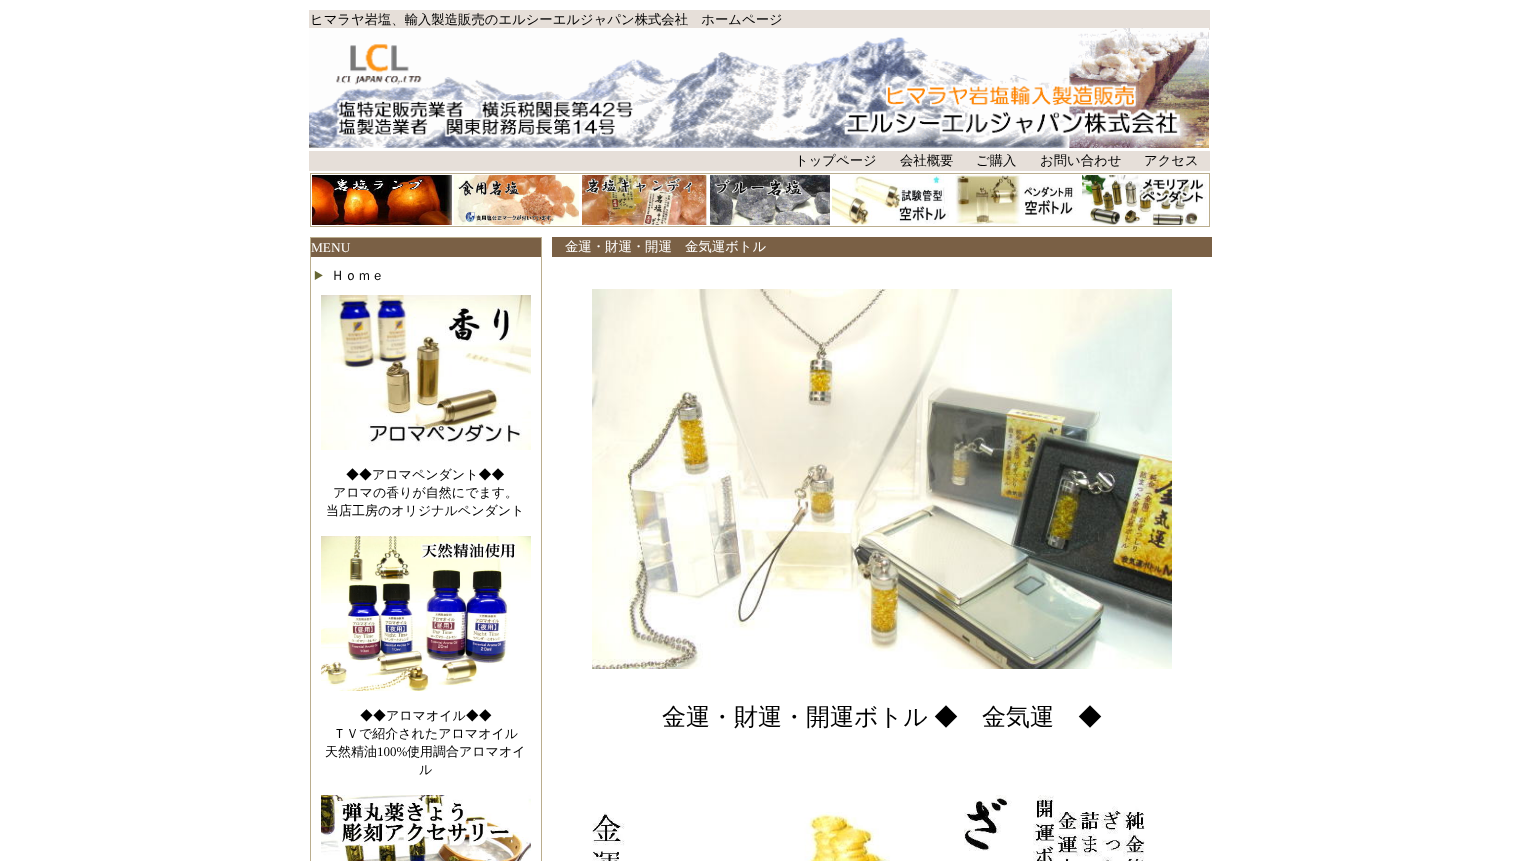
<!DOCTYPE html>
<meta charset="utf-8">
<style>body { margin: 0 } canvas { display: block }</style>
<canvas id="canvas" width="1519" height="861"></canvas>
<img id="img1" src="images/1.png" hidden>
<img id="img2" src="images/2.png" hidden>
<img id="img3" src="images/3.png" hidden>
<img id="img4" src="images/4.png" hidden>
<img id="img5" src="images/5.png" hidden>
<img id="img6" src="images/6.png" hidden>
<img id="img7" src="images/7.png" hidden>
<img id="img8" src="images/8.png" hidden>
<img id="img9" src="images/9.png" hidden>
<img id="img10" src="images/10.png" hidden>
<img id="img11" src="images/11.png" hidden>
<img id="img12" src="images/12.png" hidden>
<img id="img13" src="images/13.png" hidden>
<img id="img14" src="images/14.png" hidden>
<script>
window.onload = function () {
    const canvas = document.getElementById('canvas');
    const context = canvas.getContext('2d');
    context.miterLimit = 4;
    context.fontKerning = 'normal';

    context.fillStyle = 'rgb(255, 255, 255)';
    context.fillRect(0, 0, 1519, 861);
    context.fillStyle = 'rgb(230, 223, 217)';
    context.fillRect(309, 10, 901, 20);
    context.drawImage(document.getElementById('img1'), 309, 28, 900, 120);
    context.fillRect(309, 151, 901, 20);
    context.strokeStyle = 'rgb(186, 173, 142)';
    context.strokeRect(310.5, 173.5, 899, 53);
    context.drawImage(document.getElementById('img2'), 312, 175, 140, 50);
    context.drawImage(document.getElementById('img3'), 454, 175, 125, 50);
    context.drawImage(document.getElementById('img4'), 582, 175, 125, 50);
    context.drawImage(document.getElementById('img5'), 710, 175, 120, 50);
    context.drawImage(document.getElementById('img6'), 832, 175, 117, 50);
    context.drawImage(document.getElementById('img7'), 955, 175, 121, 50);
    context.drawImage(document.getElementById('img8'), 1082, 175, 125, 50);
    context.strokeRect(310.5, 237.5, 231, 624);
    context.fillStyle = 'rgb(122, 96, 69)';
    context.fillRect(311, 238, 230, 19);
    context.drawImage(document.getElementById('img9'), 314, 270, 9, 10);
    context.drawImage(document.getElementById('img10'), 321, 295, 210, 155);
    context.drawImage(document.getElementById('img11'), 321, 536, 210, 155);
    context.drawImage(document.getElementById('img12'), 321, 795, 210, 66);
    context.fillRect(552, 237, 660, 20);
    context.drawImage(document.getElementById('img13'), 592, 289, 580, 380);
    context.drawImage(document.getElementById('img14'), 592, 795, 553, 66);
    context.font = '500 13.35px WenQuanYi Zen Hei';
    context.fillStyle = 'rgb(0, 0, 0)';
    context.fillText('ヒマラヤ岩塩、輸入製造販売のエルシーエルジャパン株式会社　ホームページ', 310, 24);
    context.fillText('トップページ', 795, 165);
    context.fillText('会社概要', 900, 165);
    context.fillText('ご購入', 976, 165);
    context.fillText('お問い合わせ', 1040, 165);
    context.fillText('アクセス', 1144, 165);
    context.font = '13.35px Liberation Serif';
    context.fillStyle = 'rgb(255, 255, 255)';
    context.fillText('MENU', 311, 252);
    context.font = '500 13.35px WenQuanYi Zen Hei';
    context.fillStyle = 'rgb(0, 0, 0)';
    context.fillText('Ｈｏｍｅ', 331, 280);
    context.font = '500 13px WenQuanYi Zen Hei';
    context.fillText('◆◆アロマペンダント◆◆', 346, 479);
    context.fillText('アロマの香りが自然にでます。', 333, 497);
    context.fillText('当店工房のオリジナルペンダント', 326, 515);
    context.fillText('◆◆アロマオイル◆◆', 360, 720);
    context.fillText('ＴＶで紹介されたアロマオイル', 333, 738);
    context.fillText('天然精油', 325, 756);
    context.font = '13px Liberation Serif';
    context.fillText('100%', 377, 756);
    context.font = '500 13px WenQuanYi Zen Hei';
    context.fillText('使用調合アロマオイ', 407, 756);
    context.fillText('ル', 419, 774);
    context.font = '500 13.35px WenQuanYi Zen Hei';
    context.fillStyle = 'rgb(255, 255, 255)';
    context.fillText('金運・財運・開運　金気運ボトル', 565, 251);
    context.wordSpacing = '-1px';
    context.font = '500 24px WenQuanYi Zen Hei';
    context.fillStyle = 'rgb(0, 0, 0)';
    context.fillText('金運・財運・開運ボトル ◆　金気運　◆', 662, 725);
};
</script>
